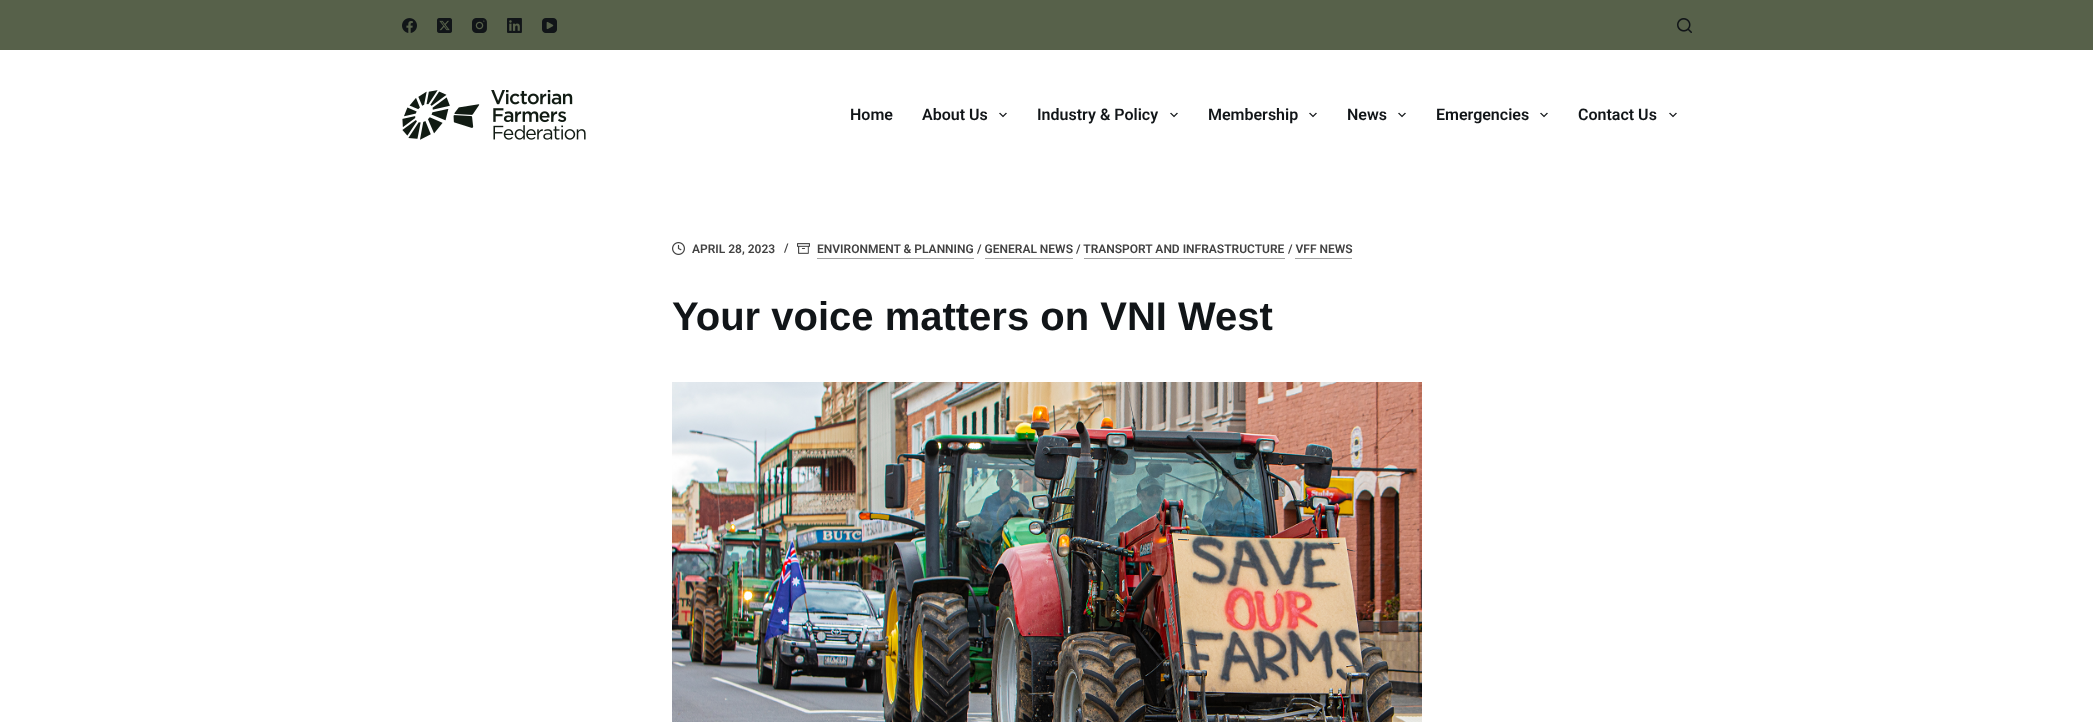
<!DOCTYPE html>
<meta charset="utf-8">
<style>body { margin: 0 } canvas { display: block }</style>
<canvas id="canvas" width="2093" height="722"></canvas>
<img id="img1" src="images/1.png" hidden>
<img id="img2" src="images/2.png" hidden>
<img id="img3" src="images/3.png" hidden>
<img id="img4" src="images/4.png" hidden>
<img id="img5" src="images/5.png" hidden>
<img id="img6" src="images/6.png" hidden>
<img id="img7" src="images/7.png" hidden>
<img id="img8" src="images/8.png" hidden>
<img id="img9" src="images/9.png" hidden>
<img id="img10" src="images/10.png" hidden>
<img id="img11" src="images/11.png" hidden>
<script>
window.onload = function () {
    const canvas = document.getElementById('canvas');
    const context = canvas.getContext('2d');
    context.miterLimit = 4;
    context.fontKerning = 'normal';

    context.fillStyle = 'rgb(255, 255, 255)';
    context.fillRect(0, 0, 2093, 722);
    context.fillStyle = 'rgb(87, 97, 74)';
    context.fillRect(0, 0, 2093, 50);
    context.drawImage(document.getElementById('img1'), 402, 18, 15, 15);
    context.drawImage(document.getElementById('img2'), 437, 18, 15, 15);
    context.drawImage(document.getElementById('img3'), 472, 18, 15, 15);
    context.drawImage(document.getElementById('img4'), 507, 18, 15, 15);
    context.drawImage(document.getElementById('img5'), 542, 18, 15, 15);
    context.drawImage(document.getElementById('img6'), 1677, 18, 15, 15);
    context.drawImage(document.getElementById('img7'), 402, 90, 184, 50);
    context.drawImage(document.getElementById('img8'), 999, 112, 8, 6);
    context.drawImage(document.getElementById('img8'), 1170, 112, 8, 6);
    context.drawImage(document.getElementById('img8'), 1309, 112, 8, 6);
    context.drawImage(document.getElementById('img8'), 1398, 112, 8, 6);
    context.drawImage(document.getElementById('img8'), 1540, 112, 8, 6);
    context.drawImage(document.getElementById('img8'), 1669, 112, 8, 6);
    context.drawImage(document.getElementById('img9'), 672, 242, 13, 13);
    context.drawImage(document.getElementById('img10'), 797, 243, 13, 11);
    context.fillStyle = 'rgb(161, 161, 161)';
    context.fillRect(817, 258, 157, 1);
    context.fillRect(985, 258, 88, 1);
    context.fillRect(1084, 258, 201, 1);
    context.fillRect(1295, 258, 57, 1);
    context.drawImage(document.getElementById('img11'), 672, 382, 750, 340);
    context.font = '600 16px Roboto';
    context.fillStyle = 'rgb(17, 21, 24)';
    context.fillText('Home', 850, 120);
    context.fillText('About Us', 922, 120);
    context.fillText('Industry & Policy', 1037, 120);
    context.fillText('Membership', 1208, 120);
    context.fillText('News', 1347, 120);
    context.fillText('Emergencies', 1436, 120);
    context.fillText('Contact Us', 1578, 120);
    context.font = '600 12px Roboto';
    context.fillStyle = 'rgb(66, 66, 66)';
    context.fillText('APRIL 28, 2023', 692, 253);
    context.fillText('/', 784, 252);
    context.fillText('ENVIRONMENT & PLANNING', 817, 253);
    context.fillText('/ GENERAL NEWS', 977, 253);
    context.fillText('/ TRANSPORT AND INFRASTRUCTURE', 1076, 253);
    context.fillText('/ VFF NEWS', 1288, 253);
    context.font = 'bold 40px Liberation Sans';
    context.fillStyle = 'rgb(17, 21, 24)';
    context.fillText('Your voice matters on VNI West', 672, 330);
};
</script>
